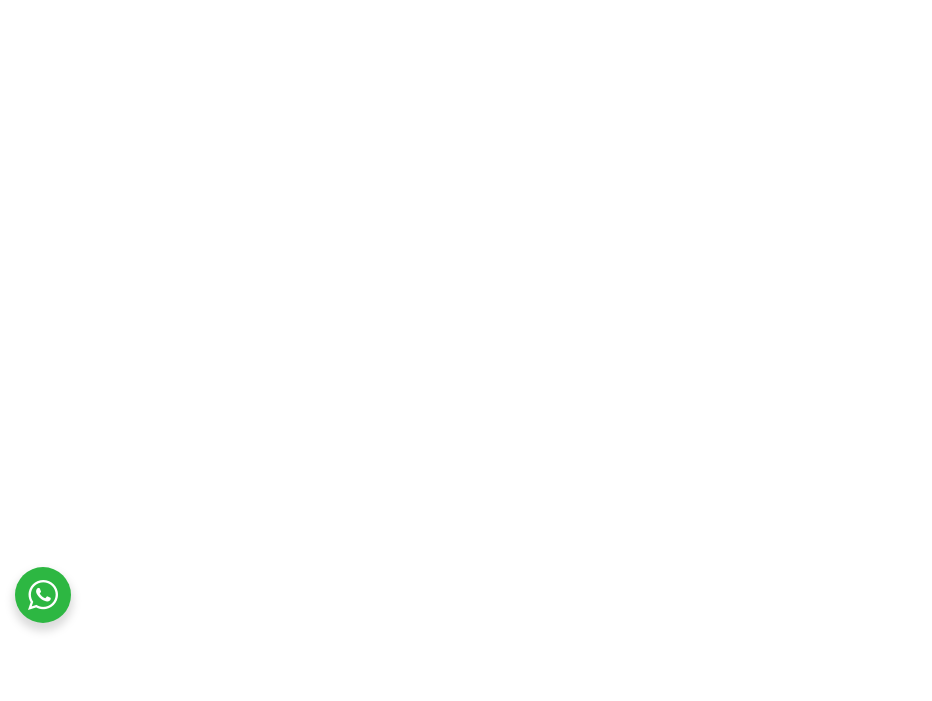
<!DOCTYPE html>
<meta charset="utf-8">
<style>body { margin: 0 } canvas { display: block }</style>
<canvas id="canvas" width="932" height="701"></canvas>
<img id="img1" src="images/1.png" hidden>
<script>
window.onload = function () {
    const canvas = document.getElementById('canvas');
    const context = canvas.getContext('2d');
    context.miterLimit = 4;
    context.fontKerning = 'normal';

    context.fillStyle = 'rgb(255, 255, 255)';
    context.fillRect(0, 0, 932, 701);
    context.fillStyle = 'rgba(0, 0, 0, 0.14)';
    context.filter = 'blur(4px)';
    context.beginPath();
    context.roundRect(13, 571, 60, 60, 30);
    context.fill();
    context.filter = 'none';
    context.fillStyle = 'rgb(45, 183, 66)';
    context.beginPath();
    context.arc(43, 595, 28, 0, 2 * Math.PI);
    context.fill();
    context.drawImage(document.getElementById('img1'), 28, 580, 30, 30);
};
</script>
